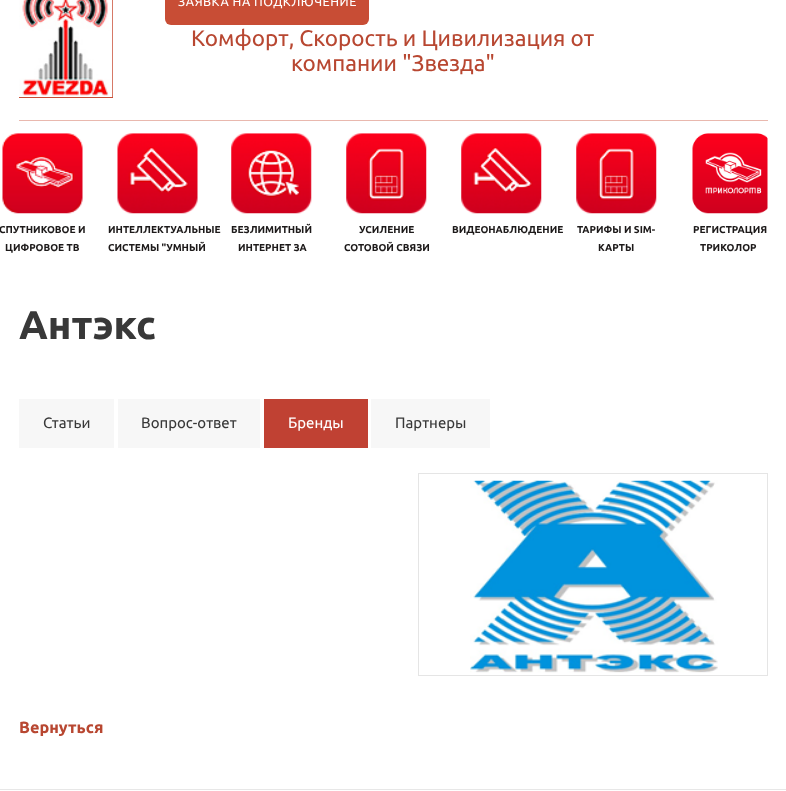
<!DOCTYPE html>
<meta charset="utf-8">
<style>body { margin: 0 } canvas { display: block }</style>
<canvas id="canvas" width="786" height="791"></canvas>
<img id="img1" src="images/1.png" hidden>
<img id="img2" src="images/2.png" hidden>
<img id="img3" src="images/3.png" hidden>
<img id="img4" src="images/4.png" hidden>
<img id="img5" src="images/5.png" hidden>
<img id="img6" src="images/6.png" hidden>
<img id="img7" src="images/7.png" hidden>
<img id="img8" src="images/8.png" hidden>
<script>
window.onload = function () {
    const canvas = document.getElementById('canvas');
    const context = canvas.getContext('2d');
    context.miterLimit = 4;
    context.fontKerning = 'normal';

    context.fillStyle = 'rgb(255, 255, 255)';
    context.fillRect(0, 0, 786, 791);
    context.fillStyle = 'rgb(200, 77, 53)';
    context.fillRect(19, 0, 94, 98);
    context.drawImage(document.getElementById('img1'), 19, 0, 94, 97);
    context.beginPath();
    context.roundRect(165, -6, 204, 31, 6);
    context.fill();
    context.fillStyle = 'rgb(233, 184, 174)';
    context.fillRect(19, 120, 749, 1);
    context.drawImage(document.getElementById('img2'), 2, 133, 81, 81);
    context.drawImage(document.getElementById('img3'), 117, 133, 81, 81);
    context.drawImage(document.getElementById('img4'), 231, 133, 81, 81);
    context.drawImage(document.getElementById('img5'), 346, 133, 81, 81);
    context.drawImage(document.getElementById('img6'), 461, 133, 81, 81);
    context.drawImage(document.getElementById('img5'), 576, 133, 81, 81);
    context.drawImage(document.getElementById('img7'), 692, 133, 76, 81);
    context.fillStyle = 'rgb(247, 247, 247)';
    context.fillRect(19, 399, 95, 49);
    context.fillRect(118, 399, 142, 49);
    context.fillStyle = 'rgb(192, 65, 51)';
    context.fillRect(264, 399, 104, 49);
    context.fillStyle = 'rgb(247, 247, 247)';
    context.fillRect(371, 399, 119, 49);
    context.strokeStyle = 'rgb(229, 229, 229)';
    context.strokeRect(418.5, 473.5, 349, 202);
    context.drawImage(document.getElementById('img8'), 470, 480, 248, 193);
    context.fillStyle = 'rgb(231, 231, 231)';
    context.fillRect(0, 789, 786, 1);
    context.letterSpacing = '0.5px';
    context.font = '12.5px Ubuntu';
    context.fillStyle = 'rgb(255, 255, 255)';
    context.fillText('ЗАЯВКА НА ПОДКЛЮЧЕНИЕ', 178, 6);
    context.letterSpacing = '0px';
    context.font = '22.5px Ubuntu';
    context.fillStyle = 'rgb(184, 71, 49)';
    context.fillText('Комфорт, Скорость и Цивилизация от', 191, 46);
    context.fillText('компании "Звезда"', 291, 71);
    context.font = 'bold 10px Ubuntu';
    context.fillStyle = 'rgb(29, 26, 26)';
    context.fillText('СПУТНИКОВОЕ И', -1, 233);
    context.fillText('ЦИФРОВОЕ ТВ', 5, 251);
    context.fillText('ИНТЕЛЛЕКТУАЛЬНЫЕ', 108, 233);
    context.fillText('СИСТЕМЫ "УМНЫЙ', 108, 251);
    context.fillText('БЕЗЛИМИТНЫЙ', 231, 233);
    context.fillText('ИНТЕРНЕТ ЗА', 238, 251);
    context.fillText('УСИЛЕНИЕ', 359, 233);
    context.fillText('СОТОВОЙ СВЯЗИ', 344, 251);
    context.fillText('ВИДЕОНАБЛЮДЕНИЕ', 452, 233);
    context.fillText('ТАРИФЫ И SIM-', 577, 233);
    context.fillText('КАРТЫ', 598, 251);
    context.fillText('РЕГИСТРАЦИЯ', 693, 233);
    context.fillText('ТРИКОЛОР', 700, 251);
    context.font = 'bold 40px Ubuntu';
    context.fillStyle = 'rgb(56, 56, 56)';
    context.fillText('Антэкс', 19, 339);
    context.font = '15px Ubuntu';
    context.fillText('Статьи', 43, 428);
    context.fillText('Вопрос-ответ', 141, 428);
    context.fillStyle = 'rgb(255, 255, 255)';
    context.fillText('Бренды', 288, 428);
    context.fillStyle = 'rgb(56, 56, 56)';
    context.fillText('Партнеры', 395, 428);
    context.font = 'bold 16.25px Ubuntu';
    context.fillStyle = 'rgb(184, 71, 49)';
    context.fillText('Вернуться', 19, 733);
};
</script>
